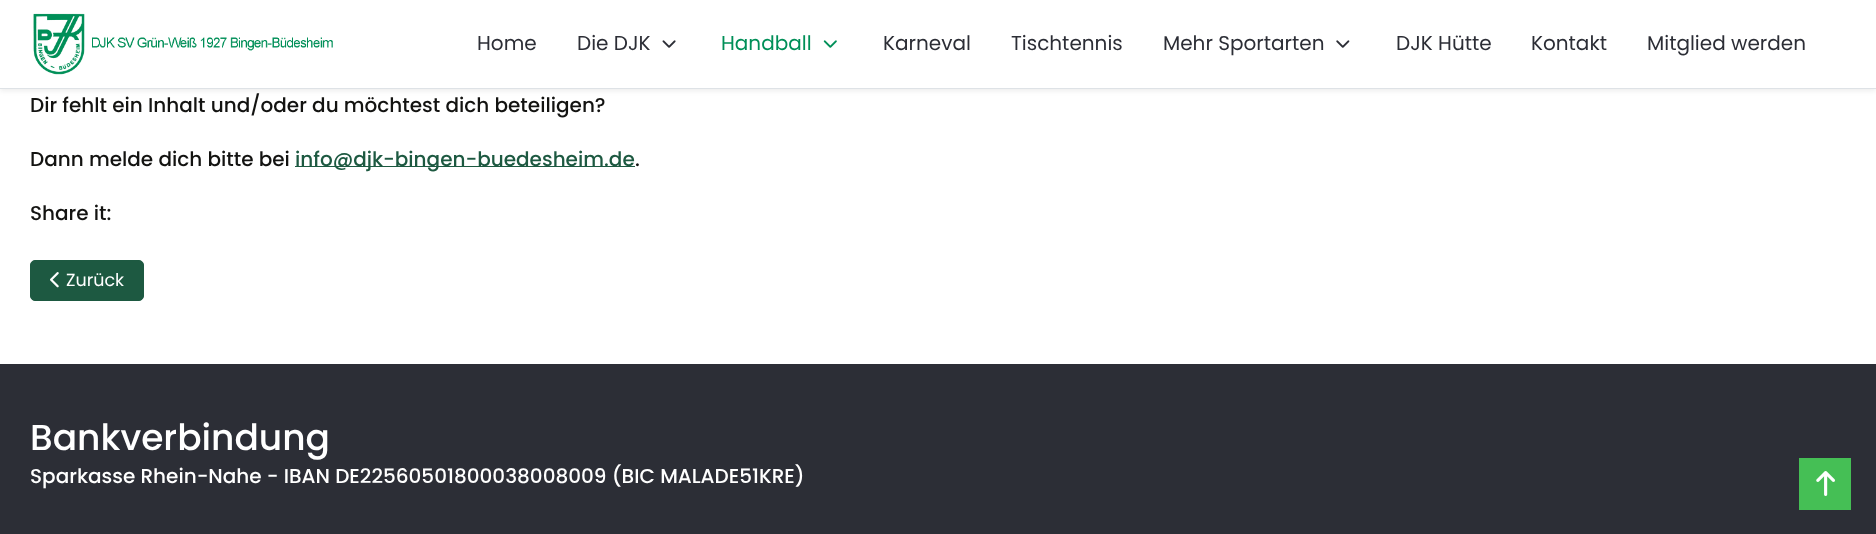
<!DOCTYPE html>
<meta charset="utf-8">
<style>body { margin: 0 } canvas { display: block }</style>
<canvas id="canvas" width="1876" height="534"></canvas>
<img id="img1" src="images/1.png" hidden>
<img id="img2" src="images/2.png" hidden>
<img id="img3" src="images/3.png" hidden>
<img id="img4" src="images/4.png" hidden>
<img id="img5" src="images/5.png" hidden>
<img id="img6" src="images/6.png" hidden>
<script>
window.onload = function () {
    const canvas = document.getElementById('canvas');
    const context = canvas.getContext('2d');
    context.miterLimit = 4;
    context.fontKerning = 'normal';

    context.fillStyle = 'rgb(255, 255, 255)';
    context.fillRect(0, 0, 1876, 534);
    context.fillStyle = 'rgba(0, 0, 0, 0.07)';
    context.filter = 'blur(2.5px)';
    context.beginPath();
    context.rect(0, 3, 1876, 88);
    context.fill();
    context.filter = 'none';
    context.fillStyle = 'rgb(255, 255, 255)';
    context.fillRect(0, 0, 1876, 88);
    context.fillStyle = 'rgb(222, 226, 230)';
    context.fillRect(0, 88, 1876, 1);
    context.drawImage(document.getElementById('img1'), 33, 13, 300, 62);
    context.drawImage(document.getElementById('img2'), 662, 40, 14, 8);
    context.drawImage(document.getElementById('img3'), 823, 40, 14, 8);
    context.drawImage(document.getElementById('img4'), 1336, 40, 14, 8);
    context.fillStyle = 'rgb(29, 89, 65)';
    context.fillRect(295, 166, 340, 1);
    context.beginPath();
    context.roundRect(30.5, 260.5, 113, 40, 4.5);
    context.fill();
    context.strokeStyle = 'rgb(29, 89, 65)';
    context.stroke();
    context.drawImage(document.getElementById('img5'), 50, 272, 9, 16);
    context.fillStyle = 'rgb(44, 46, 54)';
    context.fillRect(0, 364, 1876, 170);
    context.fillStyle = 'rgb(69, 191, 85)';
    context.fillRect(1799, 458, 52, 52);
    context.drawImage(document.getElementById('img6'), 1816, 471, 19, 25);
    context.font = '20px Poppins';
    context.fillStyle = 'rgb(44, 46, 54)';
    context.fillText('Home', 477, 50);
    context.fillText('Die DJK', 577, 50);
    context.fillStyle = 'rgb(0, 143, 88)';
    context.fillText('Handball', 721, 50);
    context.fillStyle = 'rgb(44, 46, 54)';
    context.fillText('Karneval', 883, 50);
    context.fillText('Tischtennis', 1011, 50);
    context.fillText('Mehr Sportarten', 1163, 50);
    context.fillText('DJK Hütte', 1396, 50);
    context.fillText('Kontakt', 1531, 50);
    context.fillText('Mitglied werden', 1647, 50);
    context.font = '500 20px Poppins';
    context.fillStyle = 'rgb(19, 19, 17)';
    context.fillText('Dir fehlt ein Inhalt und/oder du möchtest dich beteiligen?', 30, 112);
    context.fillText('Dann melde dich bitte bei', 30, 166);
    context.fillStyle = 'rgb(29, 89, 65)';
    context.fillText('info@djk-bingen-buedesheim.de', 295, 166);
    context.fillStyle = 'rgb(19, 19, 17)';
    context.fillText('.', 635, 166);
    context.fillText('Share it:', 30, 220);
    context.font = '17.5px Poppins';
    context.fillStyle = 'rgb(255, 255, 255)';
    context.fillText('Zurück', 66, 286);
    context.font = '500 36px Poppins';
    context.fillText('Bankverbindung', 30, 450);
    context.font = '500 20px Poppins';
    context.fillText('Sparkasse Rhein-Nahe - IBAN DE22560501800038008009 (BIC MALADE51KRE)', 30, 483);
};
</script>
